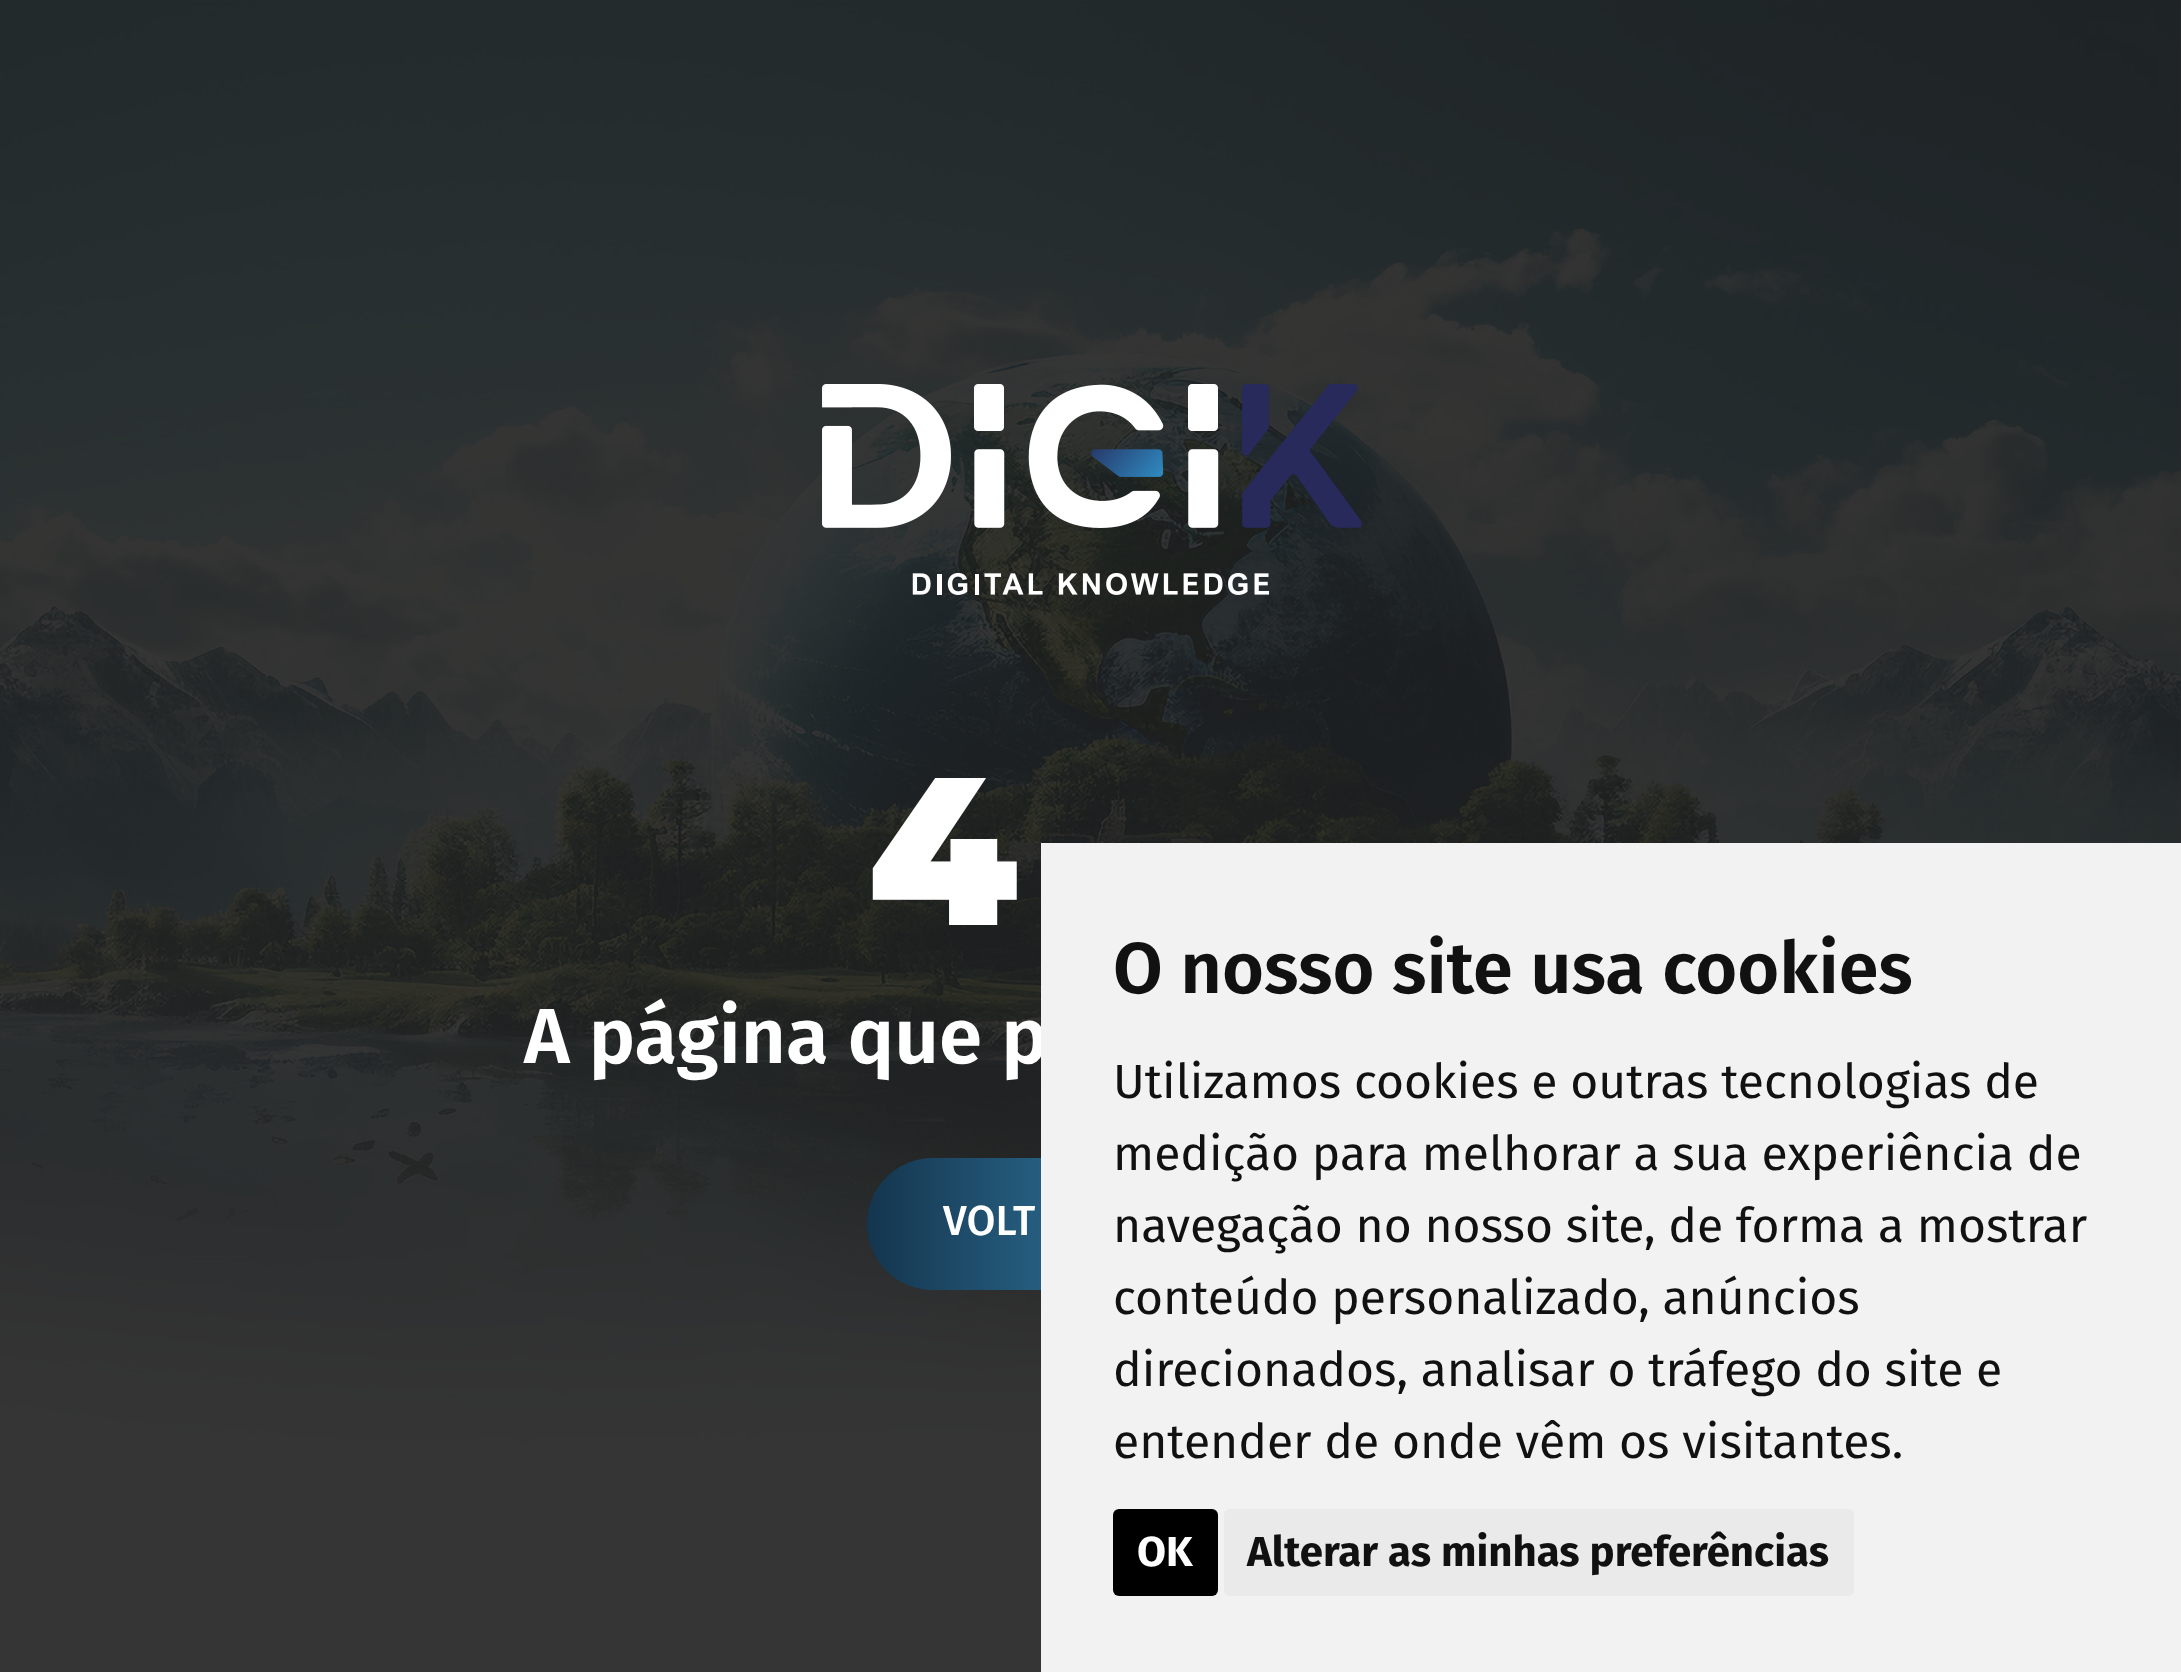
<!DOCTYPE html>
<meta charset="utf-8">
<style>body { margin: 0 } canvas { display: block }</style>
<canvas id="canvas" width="2181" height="1672"></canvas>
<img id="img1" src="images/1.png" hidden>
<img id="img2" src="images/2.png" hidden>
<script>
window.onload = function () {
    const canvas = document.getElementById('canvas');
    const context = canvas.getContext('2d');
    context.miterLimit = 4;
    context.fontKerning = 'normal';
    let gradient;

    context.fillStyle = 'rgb(53, 53, 53)';
    context.fillRect(0, 0, 2181, 1672);
    context.drawImage(document.getElementById('img1'), 0, 0, 2181, 1590);
    context.drawImage(document.getElementById('img2'), 822, 384, 540, 211);
    gradient = context.createLinearGradient(867, 1224, 1314, 1224);
    gradient.addColorStop(0, 'rgb(20, 53, 78)');
    gradient.addColorStop(1, 'rgb(66, 157, 204)');
    context.fillStyle = gradient;
    context.beginPath();
    context.roundRect(867, 1158, 447, 132, 66);
    context.fill();
    context.font = '900 210px Montserrat';
    context.fillStyle = 'rgb(255, 255, 255)';
    context.fillText('4', 868, 925);
    context.font = '600 78px Fira Sans';
    context.fillText('A página que p', 524, 1063);
    context.font = '500 42px Fira Sans';
    context.fillText('VOLT', 943, 1235);
    context.fillStyle = 'rgb(242, 242, 242)';
    context.fillRect(1041, 843, 1140, 829);
    context.font = '600 72px Fira Sans';
    context.fillStyle = 'rgb(17, 17, 17)';
    context.fillText('O nosso site usa cookies', 1113, 993);
    context.font = '48px Fira Sans';
    context.fillText('Utilizamos cookies e outras tecnologias de', 1113, 1098);
    context.fillText('medição para melhorar a sua experiência de', 1113, 1170);
    context.fillText('navegação no nosso site, de forma a mostrar', 1113, 1242);
    context.fillText('conteúdo personalizado, anúncios', 1113, 1314);
    context.fillText('direcionados, analisar o tráfego do site e', 1113, 1386);
    context.fillText('entender de onde vêm os visitantes.', 1113, 1458);
    context.fillStyle = 'rgb(0, 0, 0)';
    context.beginPath();
    context.roundRect(1113, 1509, 105, 87, 6);
    context.fill();
    context.font = 'bold 42px Fira Sans';
    context.fillStyle = 'rgb(255, 255, 255)';
    context.fillText('OK', 1137, 1566);
    context.fillStyle = 'rgb(234, 234, 234)';
    context.beginPath();
    context.roundRect(1224, 1509, 630, 87, 6);
    context.fill();
    context.fillStyle = 'rgb(17, 17, 17)';
    context.fillText('Alterar as minhas preferências', 1247, 1566);
};
</script>
